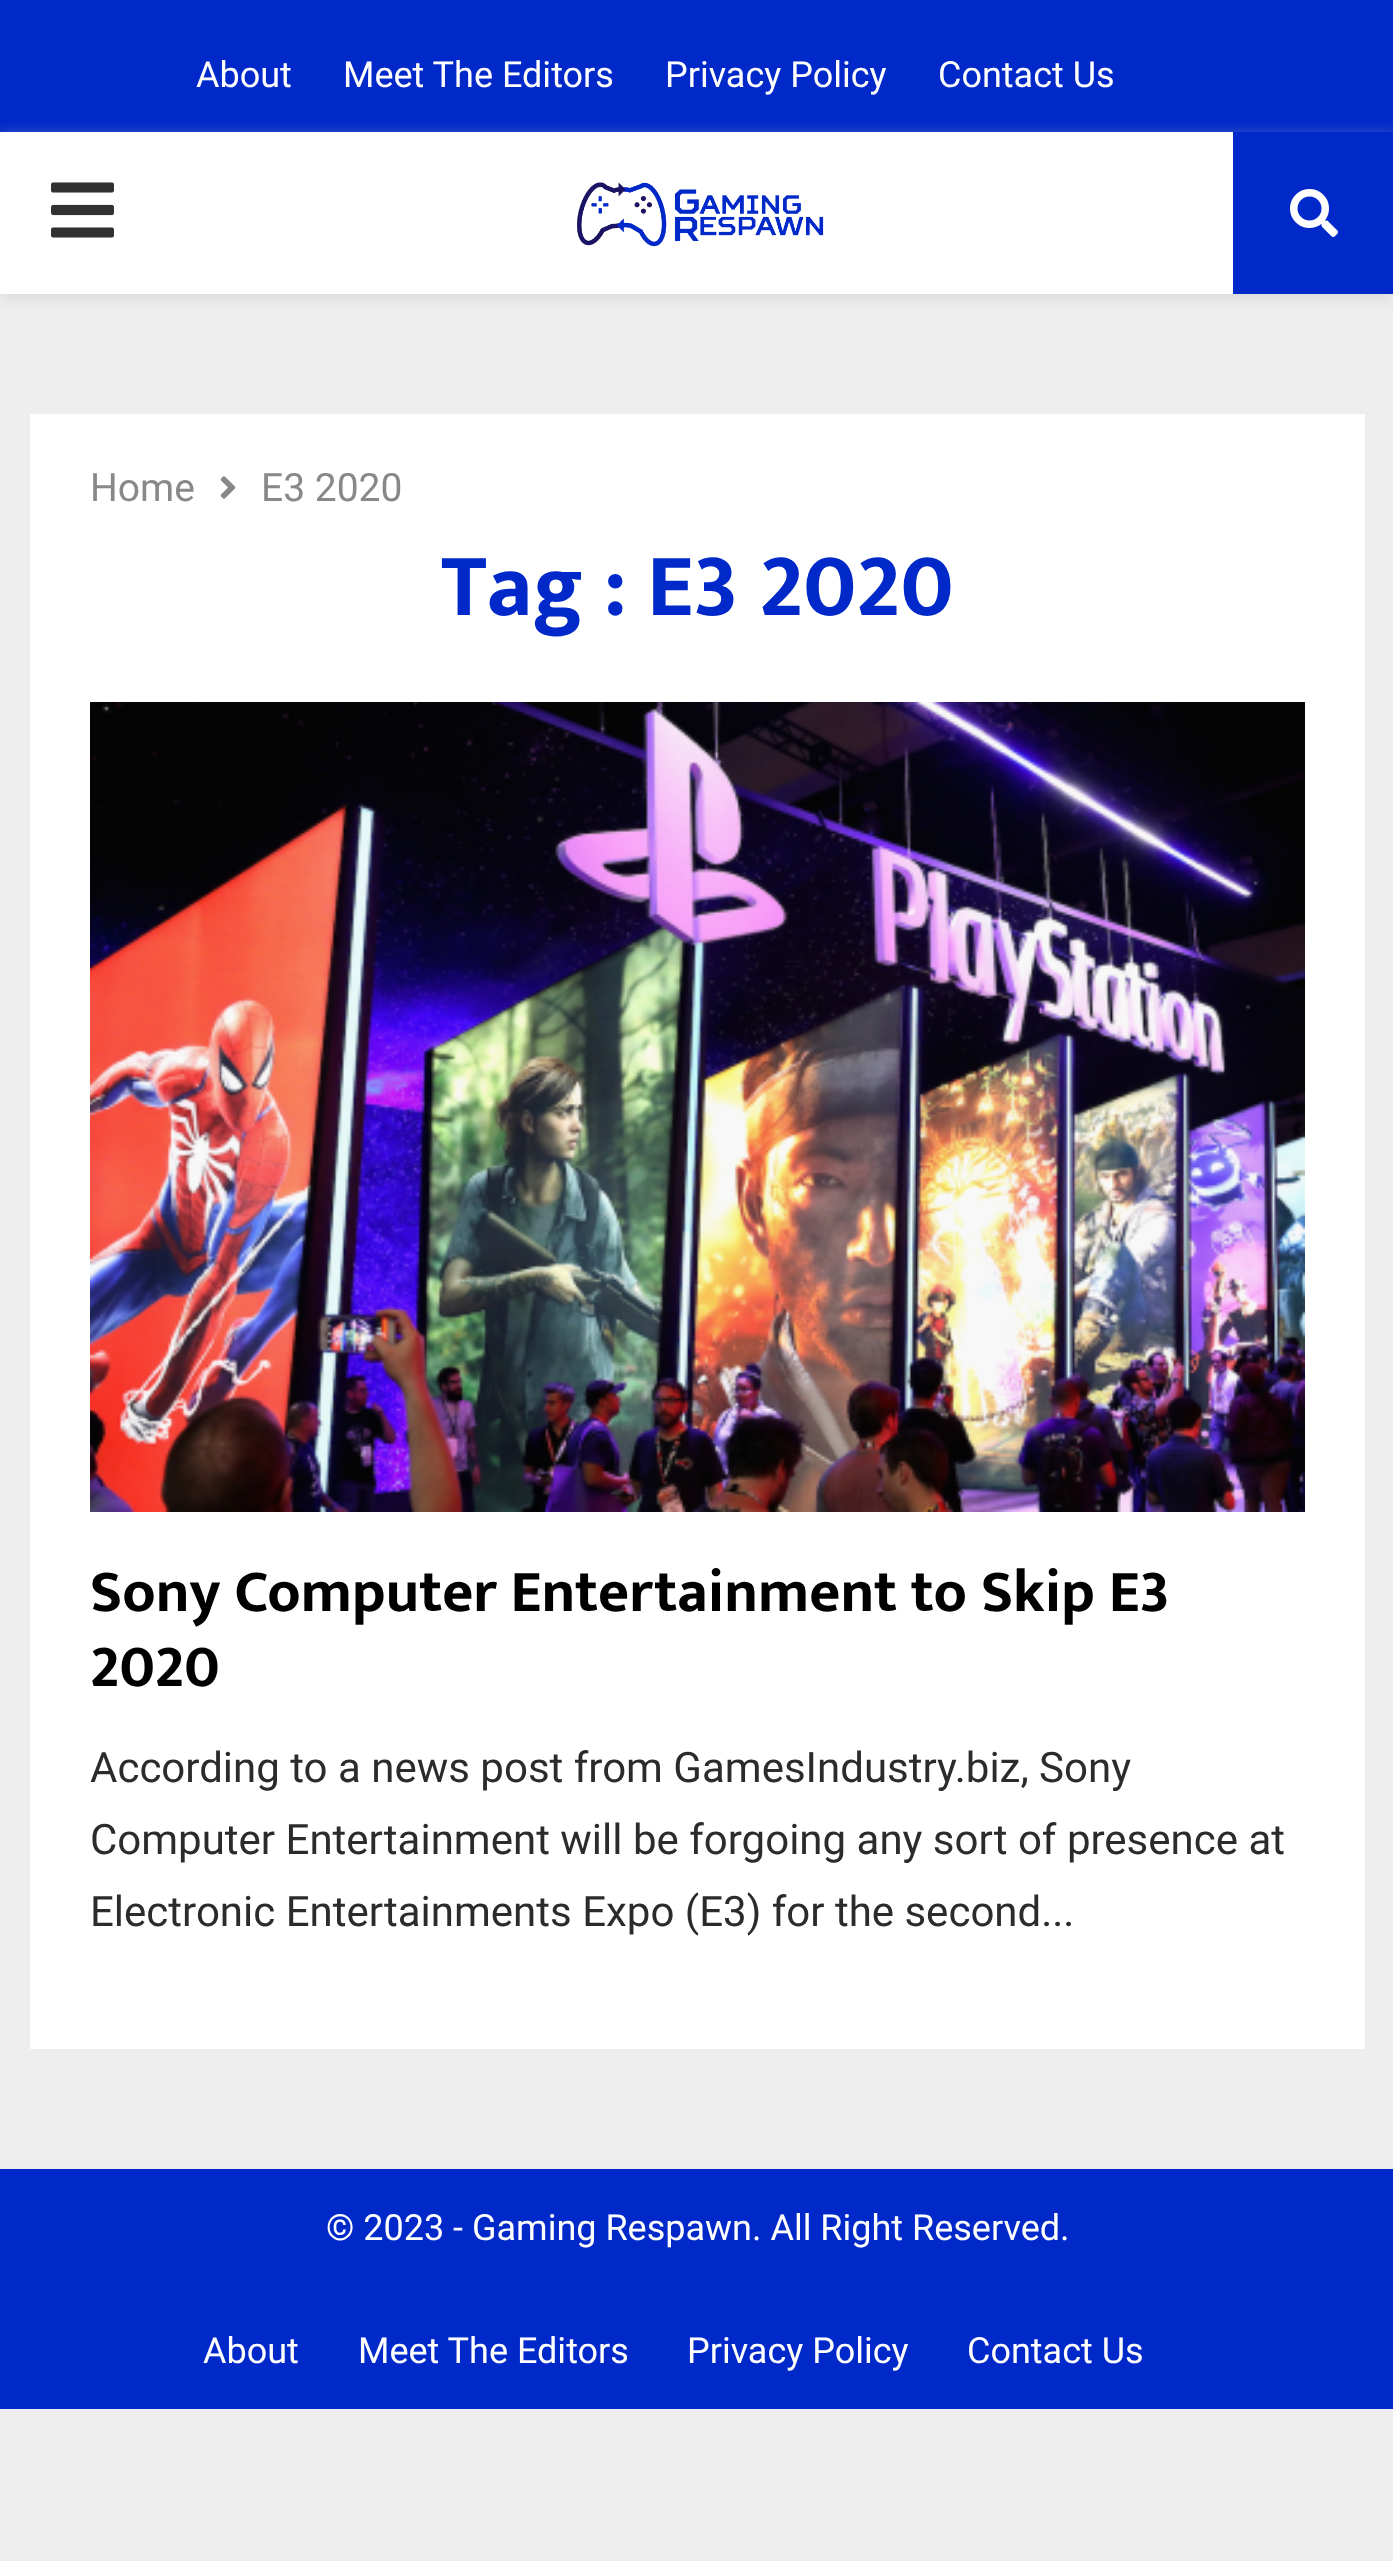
<!DOCTYPE html>
<meta charset="utf-8">
<style>body { margin: 0 } canvas { display: block }</style>
<canvas id="canvas" width="1393" height="2561"></canvas>
<img id="img1" src="images/1.png" hidden>
<img id="img2" src="images/2.png" hidden>
<img id="img3" src="images/3.png" hidden>
<img id="img4" src="images/4.png" hidden>
<img id="img5" src="images/5.png" hidden>
<script>
window.onload = function () {
    const canvas = document.getElementById('canvas');
    const context = canvas.getContext('2d');
    context.miterLimit = 4;
    context.fontKerning = 'normal';

    context.fillStyle = 'rgb(238, 238, 238)';
    context.fillRect(0, 0, 1393, 2561);
    context.fillStyle = 'rgb(1, 41, 201)';
    context.fillRect(0, 0, 1393, 132);
    context.fillStyle = 'rgba(190, 190, 190, 0.46)';
    context.filter = 'blur(7.5px)';
    context.beginPath();
    context.rect(0, 135, 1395, 162);
    context.fill();
    context.filter = 'none';
    context.fillStyle = 'rgb(255, 255, 255)';
    context.fillRect(0, 132, 1233, 162);
    context.drawImage(document.getElementById('img1'), 51, 182, 63, 56);
    context.drawImage(document.getElementById('img2'), 577, 182, 247, 65);
    context.fillStyle = 'rgb(1, 41, 201)';
    context.fillRect(1233, 132, 160, 162);
    context.drawImage(document.getElementById('img3'), 1290, 189, 48, 48);
    context.fillStyle = 'rgb(255, 255, 255)';
    context.fillRect(30, 414, 1335, 1635);
    context.drawImage(document.getElementById('img4'), 220, 476, 16, 23);
    context.drawImage(document.getElementById('img5'), 90, 702, 1215, 810);
    context.fillStyle = 'rgb(1, 41, 201)';
    context.fillRect(0, 2169, 1393, 240);
    context.font = '36px Roboto';
    context.fillStyle = 'rgb(255, 255, 255)';
    context.fillText('About', 196, 87);
    context.fillText('Meet The Editors', 343, 87);
    context.fillText('Privacy Policy', 665, 87);
    context.fillText('Contact Us', 938, 87);
    context.font = '39px Roboto';
    context.fillStyle = 'rgb(136, 136, 136)';
    context.fillText('Home', 90, 501);
    context.fillText('E3 2020', 261, 501);
    context.font = 'bold 90px Mukta Vaani';
    context.fillStyle = 'rgb(1, 41, 201)';
    context.fillText('Tag : E3 2020', 441, 615);
    context.font = 'bold 60px Mukta Vaani';
    context.fillStyle = 'rgb(0, 0, 0)';
    context.fillText('Sony Computer Entertainment to Skip E3', 90, 1611);
    context.fillText('2020', 90, 1686);
    context.font = '42px Roboto';
    context.fillStyle = 'rgb(43, 43, 43)';
    context.fillText('According to a news post from GamesIndustry.biz, Sony', 90, 1782);
    context.fillText('Computer Entertainment will be forgoing any sort of presence at', 90, 1854);
    context.fillText('Electronic Entertainments Expo (E3) for the second...', 90, 1926);
    context.font = '36px Roboto';
    context.fillStyle = 'rgb(255, 255, 255)';
    context.fillText('© 2023 - Gaming Respawn. All Right Reserved.', 326, 2240);
    context.fillText('About', 203, 2363);
    context.fillText('Meet The Editors', 358, 2363);
    context.fillText('Privacy Policy', 687, 2363);
    context.fillText('Contact Us', 967, 2363);
};
</script>
